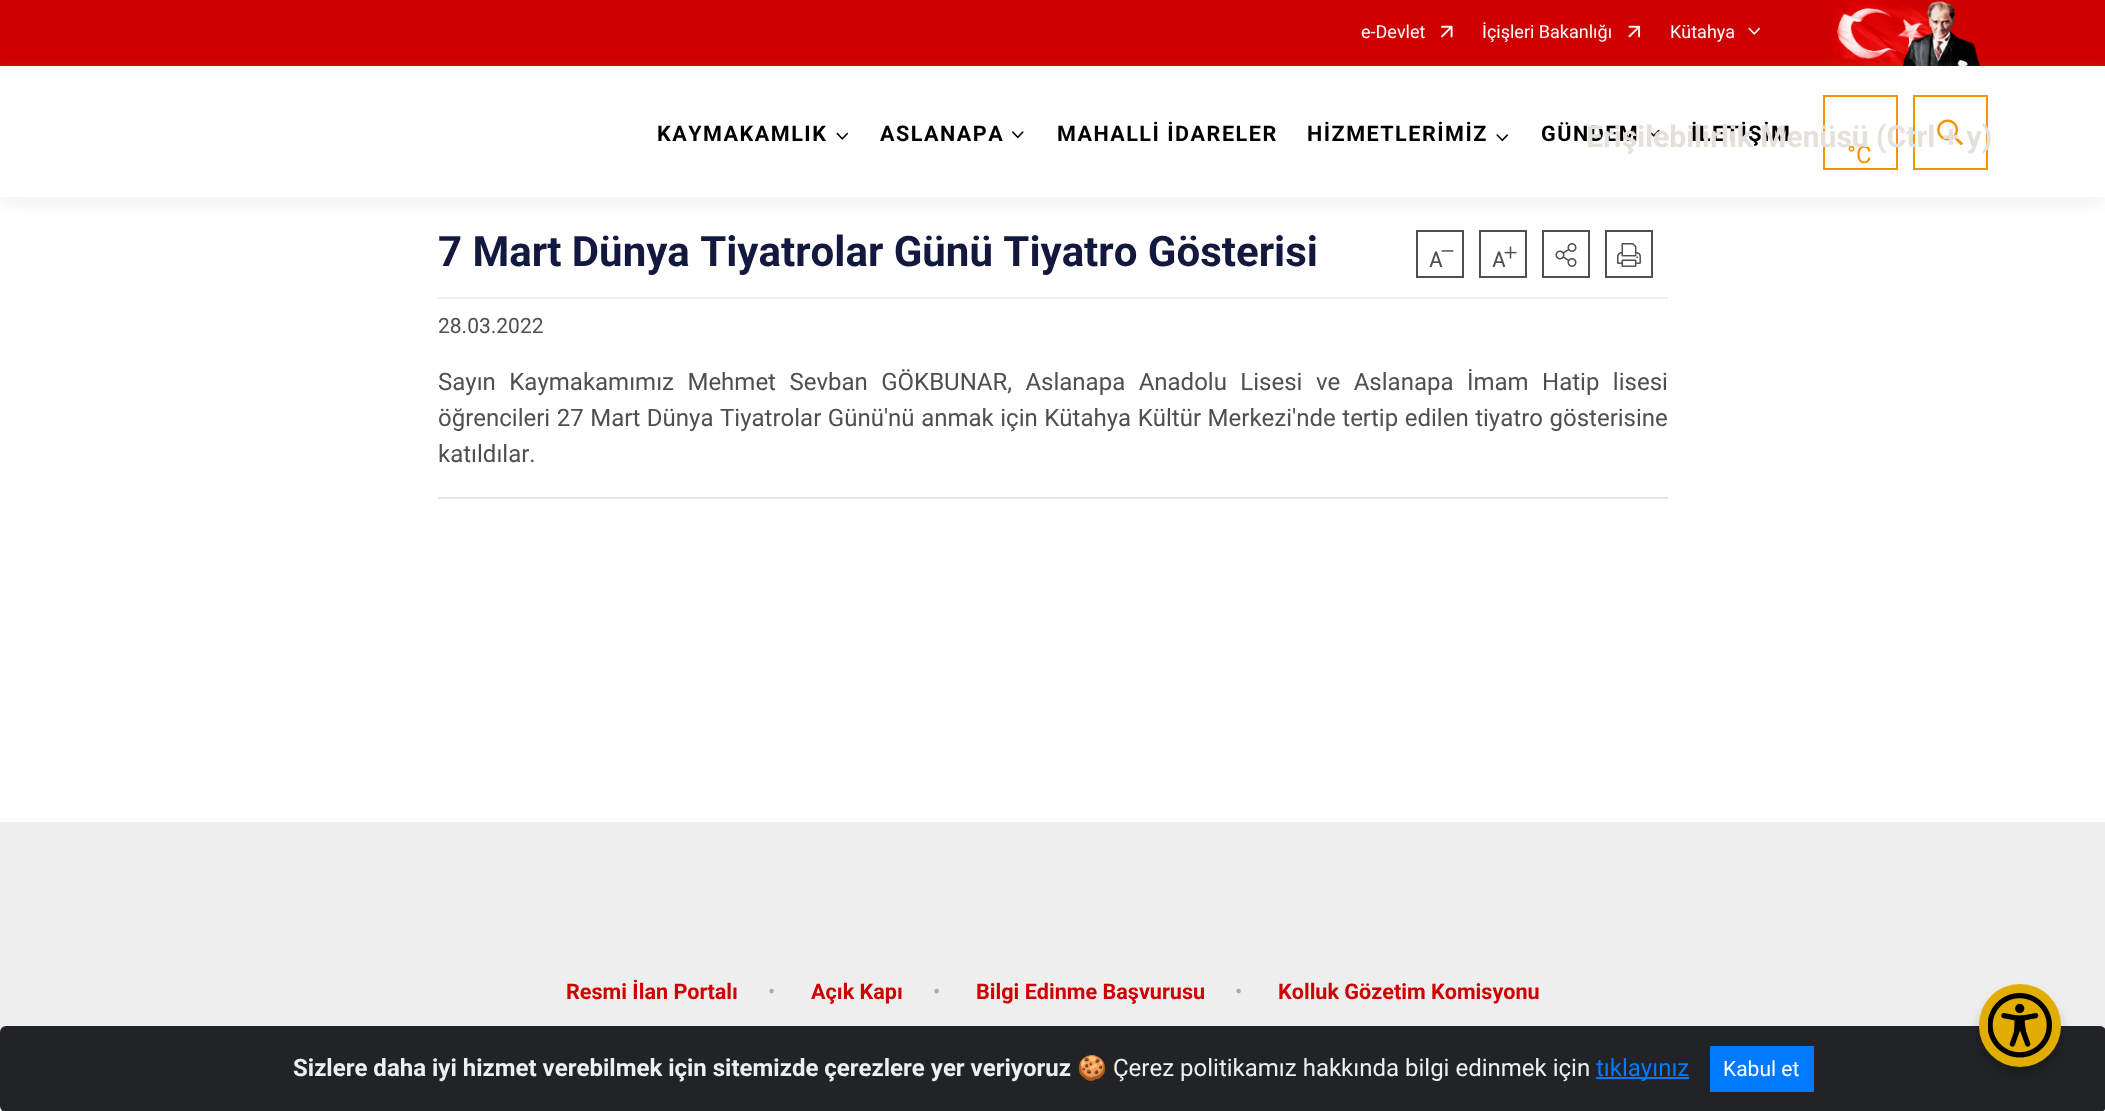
<!DOCTYPE html>
<meta charset="utf-8">
<style>body { margin: 0 } canvas { display: block }</style>
<canvas id="canvas" width="2105" height="1111"></canvas>
<img id="img1" src="images/1.png" hidden>
<img id="img2" src="images/2.png" hidden>
<img id="img3" src="images/3.png" hidden>
<img id="img4" src="images/4.png" hidden>
<img id="img5" src="images/5.png" hidden>
<img id="img6" src="images/6.png" hidden>
<img id="img7" src="images/7.png" hidden>
<img id="img8" src="images/8.png" hidden>
<img id="img9" src="images/9.png" hidden>
<img id="img10" src="images/10.png" hidden>
<img id="img11" src="images/11.png" hidden>
<img id="img12" src="images/12.png" hidden>
<img id="img13" src="images/13.png" hidden>
<img id="img14" src="images/14.png" hidden>
<script>
window.onload = function () {
    const canvas = document.getElementById('canvas');
    const context = canvas.getContext('2d');
    context.miterLimit = 4;
    context.fontKerning = 'none';

    context.fillStyle = 'rgb(255, 255, 255)';
    context.fillRect(0, 0, 2105, 1111);
    context.fillStyle = 'rgb(206, 0, 0)';
    context.fillRect(0, 0, 2105, 66);
    context.drawImage(document.getElementById('img1'), 1441, 25, 12, 13);
    context.drawImage(document.getElementById('img2'), 1628, 25, 13, 13);
    context.drawImage(document.getElementById('img3'), 1748, 27, 12, 8);
    context.drawImage(document.getElementById('img4'), 1828, 0, 153, 66);
    context.fillStyle = 'rgba(238, 238, 238, 0.62)';
    context.filter = 'blur(7.5px)';
    context.beginPath();
    context.rect(0, 75, 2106, 131);
    context.fill();
    context.filter = 'none';
    context.fillStyle = 'rgb(255, 255, 255)';
    context.fillRect(0, 70, 2105, 127);
    context.drawImage(document.getElementById('img5'), 836, 132, 12, 8);
    context.drawImage(document.getElementById('img6'), 1012, 131, 12, 8);
    context.drawImage(document.getElementById('img7'), 1496, 134, 12, 8);
    context.drawImage(document.getElementById('img8'), 1648, 129, 12, 8);
    context.strokeStyle = 'rgb(245, 147, 0)';
    context.lineWidth = 2;
    context.strokeRect(1824, 96, 73, 73);
    context.strokeRect(1914, 96, 73, 73);
    context.drawImage(document.getElementById('img9'), 1937, 119, 26, 27);
    context.fillStyle = 'rgb(238, 238, 238)';
    context.fillRect(438, 297, 1230, 2);
    context.strokeStyle = 'rgb(79, 79, 79)';
    context.strokeRect(1417, 231, 46, 46);
    context.drawImage(document.getElementById('img10'), 1429, 250, 25, 17);
    context.strokeRect(1480, 231, 46, 46);
    context.drawImage(document.getElementById('img11'), 1492, 246, 25, 21);
    context.strokeRect(1543, 231, 46, 46);
    context.drawImage(document.getElementById('img12'), 1555, 243, 22, 24);
    context.strokeRect(1606, 231, 46, 46);
    context.drawImage(document.getElementById('img13'), 1617, 243, 24, 24);
    context.fillStyle = 'rgb(230, 230, 230)';
    context.fillRect(438, 497, 1230, 2);
    context.fillStyle = 'rgb(238, 238, 238)';
    context.fillRect(0, 822, 2105, 289);
    context.fillStyle = 'rgb(33, 35, 39)';
    context.beginPath();
    context.roundRect(0, 1026, 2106, 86, 6);
    context.fill();
    context.fillStyle = 'rgba(0, 0, 0, 0.2)';
    context.filter = 'blur(6px)';
    context.beginPath();
    context.roundRect(1979, 993, 82, 83, 41);
    context.fill();
    context.filter = 'none';
    context.fillStyle = 'rgb(225, 173, 1)';
    context.beginPath();
    context.roundRect(1979, 984, 82, 83, 41);
    context.fill();
    context.drawImage(document.getElementById('img14'), 1988, 993, 64, 65);
    context.fillStyle = 'rgb(0, 123, 255)';
    context.fillRect(1596, 1077, 93, 2);
    context.fillRect(1710, 1046, 104, 46);
    context.font = '18px Roboto';
    context.fillStyle = 'rgb(255, 255, 255)';
    context.fillText('e-Devlet', 1361, 38);
    context.fillText('İçişleri Bakanlığı', 1482, 38);
    context.fillText('Kütahya', 1670, 38);
    context.letterSpacing = '1.5px';
    context.font = 'bold 21.6px Roboto';
    context.fillStyle = 'rgb(0, 0, 0)';
    context.fillText('KAYMAKAMLIK', 657, 141);
    context.fillText('ASLANAPA', 880, 141);
    context.fillText('MAHALLİ İDARELER', 1057, 141);
    context.fillText('HİZMETLERİMİZ', 1307, 141);
    context.fillText('GÜNDEM', 1541, 141);
    context.fillText('İLETİŞİM', 1691, 141);
    context.letterSpacing = '0px';
    context.font = '24px Roboto';
    context.fillStyle = 'rgb(245, 147, 0)';
    context.fillText('°C', 1847, 163);
    context.font = 'bold 42px Roboto';
    context.fillStyle = 'rgb(19, 24, 62)';
    context.fillText('7 Mart Dünya Tiyatrolar Günü Tiyatro Gösterisi', 438, 266);
    context.font = '21px Roboto';
    context.fillStyle = 'rgb(79, 79, 79)';
    context.fillText('28.03.2022', 438, 333);
    context.wordSpacing = '7.5px';
    context.font = '24px Roboto';
    context.fillText('Sayın Kaymakamımız Mehmet Sevban GÖKBUNAR, Aslanapa Anadolu Lisesi ve Aslanapa İmam Hatip lisesi', 438, 390);
    context.wordSpacing = '0.6px';
    context.fillText('öğrencileri 27 Mart Dünya Tiyatrolar Günü\'nü anmak için Kütahya Kültür Merkezi\'nde tertip edilen tiyatro gösterisine', 438, 426);
    context.wordSpacing = '0px';
    context.fillText('katıldılar.', 438, 462);
    context.font = 'bold 21.6px Roboto';
    context.fillStyle = 'rgb(206, 0, 0)';
    context.fillText('Resmi İlan Portalı', 566, 999);
    context.font = '21.6px Roboto';
    context.fillStyle = 'rgb(170, 170, 170)';
    context.fillText('•', 768, 999);
    context.font = 'bold 21.6px Roboto';
    context.fillStyle = 'rgb(206, 0, 0)';
    context.fillText('Açık Kapı', 811, 999);
    context.font = '21.6px Roboto';
    context.fillStyle = 'rgb(170, 170, 170)';
    context.fillText('•', 933, 999);
    context.font = 'bold 21.6px Roboto';
    context.fillStyle = 'rgb(206, 0, 0)';
    context.fillText('Bilgi Edinme Başvurusu', 976, 999);
    context.font = '21.6px Roboto';
    context.fillStyle = 'rgb(170, 170, 170)';
    context.fillText('•', 1235, 999);
    context.font = 'bold 21.6px Roboto';
    context.fillStyle = 'rgb(206, 0, 0)';
    context.fillText('Kolluk Gözetim Komisyonu', 1278, 999);
    context.font = 'bold 30px Roboto';
    context.fillStyle = 'rgb(228, 225, 219)';
    context.fillText('Erişilebilirlik Menüsü (Ctrl + y)', 1586, 147);
    context.font = 'bold 24px Roboto';
    context.fillStyle = 'rgb(236, 240, 241)';
    context.fillText('Sizlere daha iyi hizmet verebilmek için sitemizde çerezlere yer veriyoruz', 293, 1076);
    context.font = '24px Noto Color Emoji';
    context.fillText('🍪', 1077, 1076);
    context.font = '24px Roboto';
    context.fillText('Çerez politikamız hakkında bilgi edinmek için', 1113, 1076);
    context.fillStyle = 'rgb(0, 123, 255)';
    context.fillText('tıklayınız', 1596, 1076);
    context.font = '21px Roboto';
    context.fillStyle = 'rgb(255, 255, 255)';
    context.fillText('Kabul et', 1723, 1076);
};
</script>
